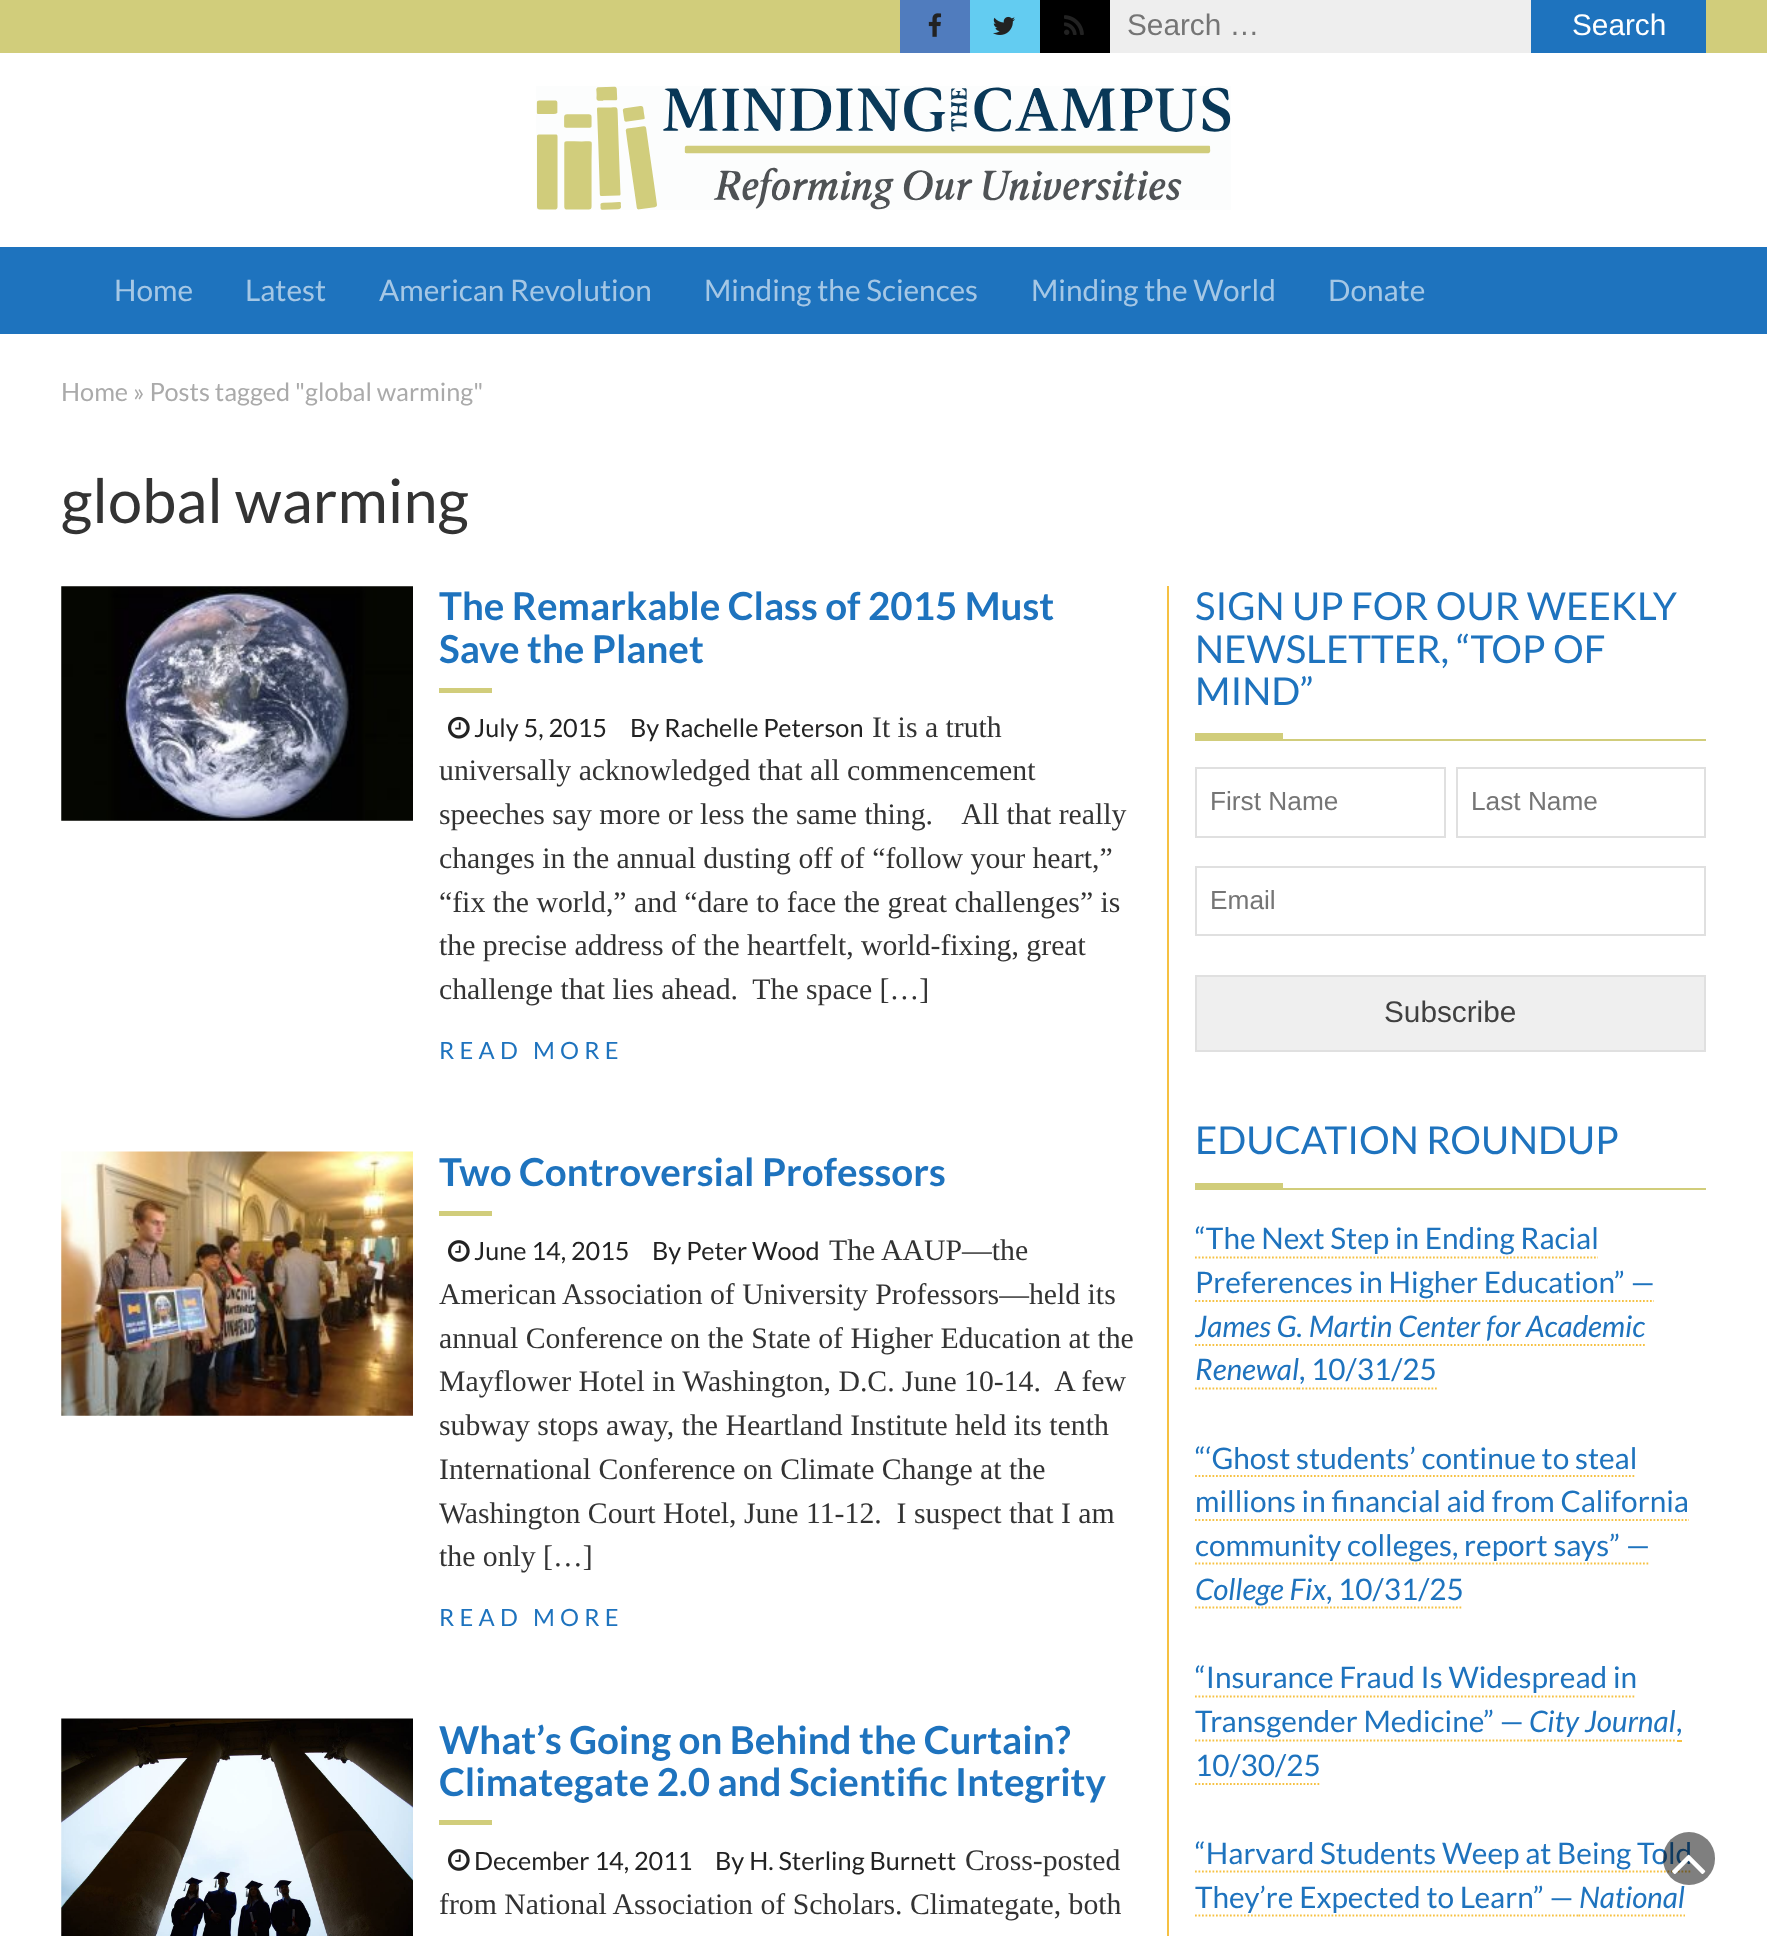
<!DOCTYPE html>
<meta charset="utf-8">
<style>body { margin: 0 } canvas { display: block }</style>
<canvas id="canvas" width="1767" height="1936"></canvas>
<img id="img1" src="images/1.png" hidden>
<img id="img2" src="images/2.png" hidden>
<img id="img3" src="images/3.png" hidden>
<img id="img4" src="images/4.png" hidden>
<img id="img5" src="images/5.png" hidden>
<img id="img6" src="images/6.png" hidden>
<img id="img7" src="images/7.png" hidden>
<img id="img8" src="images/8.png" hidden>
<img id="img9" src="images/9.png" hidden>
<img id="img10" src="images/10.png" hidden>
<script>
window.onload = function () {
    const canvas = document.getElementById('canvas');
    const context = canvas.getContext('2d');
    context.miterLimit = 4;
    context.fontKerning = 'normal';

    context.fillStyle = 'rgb(255, 255, 255)';
    context.fillRect(0, 0, 1767, 1936);
    context.fillStyle = 'rgb(209, 205, 123)';
    context.fillRect(0, 0, 1767, 53);
    context.fillStyle = 'rgb(80, 124, 190)';
    context.fillRect(900, 0, 70, 53);
    context.drawImage(document.getElementById('img1'), 928, 13, 14, 24);
    context.fillStyle = 'rgb(99, 204, 241)';
    context.fillRect(970, 0, 70, 53);
    context.drawImage(document.getElementById('img2'), 993, 16, 22, 19);
    context.fillStyle = 'rgb(0, 0, 0)';
    context.fillRect(1040, 0, 70, 53);
    context.drawImage(document.getElementById('img3'), 1064, 15, 20, 20);
    context.fillStyle = 'rgb(238, 238, 238)';
    context.fillRect(1110, 0, 421, 53);
    context.fillStyle = 'rgb(30, 115, 190)';
    context.fillRect(1531, 0, 175, 53);
    context.drawImage(document.getElementById('img4'), 536, 86, 695, 124);
    context.fillRect(0, 247, 1767, 87);
    context.drawImage(document.getElementById('img5'), 61, 586, 352, 235);
    context.fillStyle = 'rgb(209, 205, 123)';
    context.fillRect(439, 688, 53, 5);
    context.drawImage(document.getElementById('img6'), 448, 716, 22, 23);
    context.drawImage(document.getElementById('img7'), 61, 1151, 352, 265);
    context.fillRect(439, 1211, 53, 5);
    context.drawImage(document.getElementById('img8'), 448, 1240, 22, 22);
    context.drawImage(document.getElementById('img9'), 61, 1718, 352, 218);
    context.fillRect(439, 1820, 53, 5);
    context.drawImage(document.getElementById('img8'), 448, 1849, 22, 22);
    context.fillStyle = 'rgb(246, 193, 67)';
    context.fillRect(1167, 586, 2, 1350);
    context.fillStyle = 'rgb(209, 205, 123)';
    context.fillRect(1195, 739, 511, 2);
    context.fillRect(1195, 733, 88, 6);
    context.strokeStyle = 'rgb(224, 224, 224)';
    context.lineWidth = 2;
    context.strokeRect(1196, 768, 249, 69);
    context.strokeRect(1457, 768, 248, 69);
    context.strokeRect(1196, 867, 509, 68);
    context.fillStyle = 'rgb(239, 239, 239)';
    context.beginPath();
    context.rect(1196, 976, 509, 75);
    context.fill();
    context.stroke();
    context.fillStyle = 'rgb(209, 205, 123)';
    context.fillRect(1283, 1188, 423, 2);
    context.fillRect(1195, 1183, 88, 7);
    context.beginPath();
    context.moveTo(1195, 1257.5);
    context.lineTo(1598, 1257.5);
    context.strokeStyle = 'rgb(246, 193, 67)';
    context.lineWidth = 1.8;
    context.setLineDash([1.75, 1.75]);
    context.stroke();
    context.beginPath();
    context.moveTo(1195, 1301);
    context.lineTo(1654, 1301);
    context.stroke();
    context.beginPath();
    context.moveTo(1195, 1345);
    context.lineTo(1645, 1345);
    context.stroke();
    context.beginPath();
    context.moveTo(1195, 1388.5);
    context.lineTo(1298.5, 1388.5);
    context.stroke();
    context.beginPath();
    context.moveTo(1298.5, 1388.5);
    context.lineTo(1437, 1388.5);
    context.stroke();
    context.beginPath();
    context.moveTo(1195, 1476);
    context.lineTo(1636, 1476);
    context.stroke();
    context.beginPath();
    context.moveTo(1195, 1520);
    context.lineTo(1689, 1520);
    context.stroke();
    context.beginPath();
    context.moveTo(1195, 1563.5);
    context.lineTo(1650, 1563.5);
    context.stroke();
    context.beginPath();
    context.moveTo(1195, 1607.5);
    context.lineTo(1326.5, 1607.5);
    context.stroke();
    context.beginPath();
    context.moveTo(1326.5, 1607.5);
    context.lineTo(1463, 1607.5);
    context.stroke();
    context.beginPath();
    context.moveTo(1195, 1696.5);
    context.lineTo(1636, 1696.5);
    context.stroke();
    context.beginPath();
    context.moveTo(1195, 1740.5);
    context.lineTo(1529.5, 1740.5);
    context.stroke();
    context.beginPath();
    context.moveTo(1529.5, 1740.5);
    context.lineTo(1676.5, 1740.5);
    context.stroke();
    context.fillStyle = 'rgb(246, 193, 67)';
    context.fillRect(1677, 1740, 5, 2);
    context.beginPath();
    context.moveTo(1195, 1784);
    context.lineTo(1321, 1784);
    context.stroke();
    context.beginPath();
    context.moveTo(1195, 1871.5);
    context.lineTo(1692, 1871.5);
    context.stroke();
    context.beginPath();
    context.moveTo(1195, 1915.5);
    context.lineTo(1578.5, 1915.5);
    context.stroke();
    context.beginPath();
    context.moveTo(1578.5, 1915.5);
    context.lineTo(1685, 1915.5);
    context.stroke();
    context.font = '29.75px Liberation Sans';
    context.fillStyle = 'rgb(117, 117, 117)';
    context.fillText('Search …', 1127, 35);
    context.fillStyle = 'rgb(255, 255, 255)';
    context.fillText('Search', 1572, 35);
    context.font = '29.75px Lato';
    context.fillStyle = 'rgb(165, 199, 229)';
    context.fillText('Home', 114, 301);
    context.fillText('Latest', 245, 301);
    context.fillText('American Revolution', 379, 301);
    context.fillText('Minding the Sciences', 704, 301);
    context.fillText('Minding the World', 1031, 301);
    context.fillText('Donate', 1328, 301);
    context.font = '25.25px Lato';
    context.fillStyle = 'rgb(170, 170, 170)';
    context.fillText('Home » Posts tagged "global warming"', 61, 401);
    context.font = '61.25px Lato';
    context.fillStyle = 'rgb(51, 51, 51)';
    context.fillText('global warming', 61, 523);
    context.font = 'bold 38.5px Lato';
    context.fillStyle = 'rgb(30, 115, 190)';
    context.fillText('The Remarkable Class of 2015 Must', 439, 620);
    context.fillText('Save the Planet', 439, 663);
    context.font = '29.75px Liberation Serif';
    context.fillStyle = 'rgb(51, 51, 51)';
    context.fillText('It is a truth', 872, 737);
    context.fillText('universally acknowledged that all commencement', 439, 780);
    context.fillText('speeches say more or less the same thing.    All that really', 439, 824);
    context.fillText('changes in the annual dusting off of “follow your heart,”', 439, 868);
    context.fillText('“fix the world,” and “dare to face the great challenges” is', 439, 912);
    context.fillText('the precise address of the heartfelt, world-fixing, great', 439, 955);
    context.fillText('challenge that lies ahead.  The space […]', 439, 999);
    context.font = '25.25px Lato';
    context.fillStyle = 'rgb(34, 34, 34)';
    context.fillText('July 5, 2015', 474, 737);
    context.fillText('By Rachelle Peterson', 630, 737);
    context.letterSpacing = '5.25px';
    context.font = '23.75px Lato';
    context.fillStyle = 'rgb(30, 115, 190)';
    context.fillText('READ MORE', 439, 1059);
    context.letterSpacing = '0px';
    context.font = 'bold 38.5px Lato';
    context.fillText('Two Controversial Professors', 439, 1186);
    context.font = '29.75px Liberation Serif';
    context.fillStyle = 'rgb(51, 51, 51)';
    context.fillText('The AAUP—the', 829, 1260);
    context.fillText('American Association of University Professors—held its', 439, 1304);
    context.fillText('annual Conference on the State of Higher Education at the', 439, 1348);
    context.fillText('Mayflower Hotel in Washington, D.C. June 10-14.  A few', 439, 1391);
    context.fillText('subway stops away, the Heartland Institute held its tenth', 439, 1435);
    context.fillText('International Conference on Climate Change at the', 439, 1479);
    context.fillText('Washington Court Hotel, June 11-12.  I suspect that I am', 439, 1523);
    context.fillText('the only […]', 439, 1566);
    context.font = '25.25px Lato';
    context.fillStyle = 'rgb(34, 34, 34)';
    context.fillText('June 14, 2015', 474, 1260);
    context.fillText('By Peter Wood', 652, 1260);
    context.letterSpacing = '5.25px';
    context.font = '23.75px Lato';
    context.fillStyle = 'rgb(30, 115, 190)';
    context.fillText('READ MORE', 439, 1626);
    context.letterSpacing = '0px';
    context.font = 'bold 38.5px Lato';
    context.fillText('What’s Going on Behind the Curtain?', 439, 1754);
    context.fillText('Climategate 2.0 and Scientific Integrity', 439, 1796);
    context.font = '29.75px Liberation Serif';
    context.fillStyle = 'rgb(51, 51, 51)';
    context.fillText('Cross-posted', 965, 1870);
    context.fillText('from National Association of Scholars. Climategate, both', 439, 1914);
    context.font = '25.25px Lato';
    context.fillStyle = 'rgb(34, 34, 34)';
    context.fillText('December 14, 2011', 474, 1870);
    context.fillText('By H. Sterling Burnett', 715, 1870);
    context.font = '38.5px Lato';
    context.fillStyle = 'rgb(30, 115, 190)';
    context.fillText('SIGN UP FOR OUR WEEKLY', 1195, 620);
    context.fillText('NEWSLETTER, “TOP OF', 1195, 663);
    context.fillText('MIND”', 1195, 705);
    context.font = '26.25px Liberation Sans';
    context.fillStyle = 'rgb(117, 117, 117)';
    context.fillText('First Name', 1210, 810);
    context.fillText('Last Name', 1471, 810);
    context.fillText('Email', 1210, 909);
    context.font = '29.75px Liberation Sans';
    context.fillStyle = 'rgb(64, 64, 64)';
    context.fillText('Subscribe', 1384, 1022);
    context.font = '38.5px Lato';
    context.fillStyle = 'rgb(30, 115, 190)';
    context.fillText('EDUCATION ROUNDUP', 1195, 1154);
    context.font = '29.75px Lato';
    context.fillText('“The Next Step in Ending Racial', 1195, 1249);
    context.fillText('Preferences in Higher Education” —', 1195, 1293);
    context.font = 'italic 29.75px Lato';
    context.fillText('James G. Martin Center for Academic', 1195, 1337);
    context.fillText('Renewal', 1195, 1380);
    context.font = '29.75px Lato';
    context.fillText(', 10/31/25', 1299, 1380);
    context.fillText('“‘Ghost students’ continue to steal', 1195, 1469);
    context.fillText('millions in financial aid from California', 1195, 1512);
    context.fillText('community colleges, report says” —', 1195, 1556);
    context.font = 'italic 29.75px Lato';
    context.fillText('College Fix', 1195, 1600);
    context.font = '29.75px Lato';
    context.fillText(', 10/31/25', 1326, 1600);
    context.fillText('“Insurance Fraud Is Widespread in', 1195, 1688);
    context.fillText('Transgender Medicine” —', 1195, 1732);
    context.font = 'italic 29.75px Lato';
    context.fillText('City Journal', 1529, 1732);
    context.font = '29.75px Lato';
    context.fillText(',', 1676, 1732);
    context.fillText('10/30/25', 1195, 1776);
    context.fillText('“Harvard Students Weep at Being Told', 1195, 1864);
    context.fillText('They’re Expected to Learn” —', 1195, 1908);
    context.font = 'italic 29.75px Lato';
    context.fillText('National', 1579, 1908);
    context.fillStyle = 'rgba(0, 0, 0, 0.5)';
    context.beginPath();
    context.roundRect(1663, 1832, 52, 53, 26);
    context.fill();
    context.drawImage(document.getElementById('img10'), 1672, 1854, 34, 20);
};
</script>
